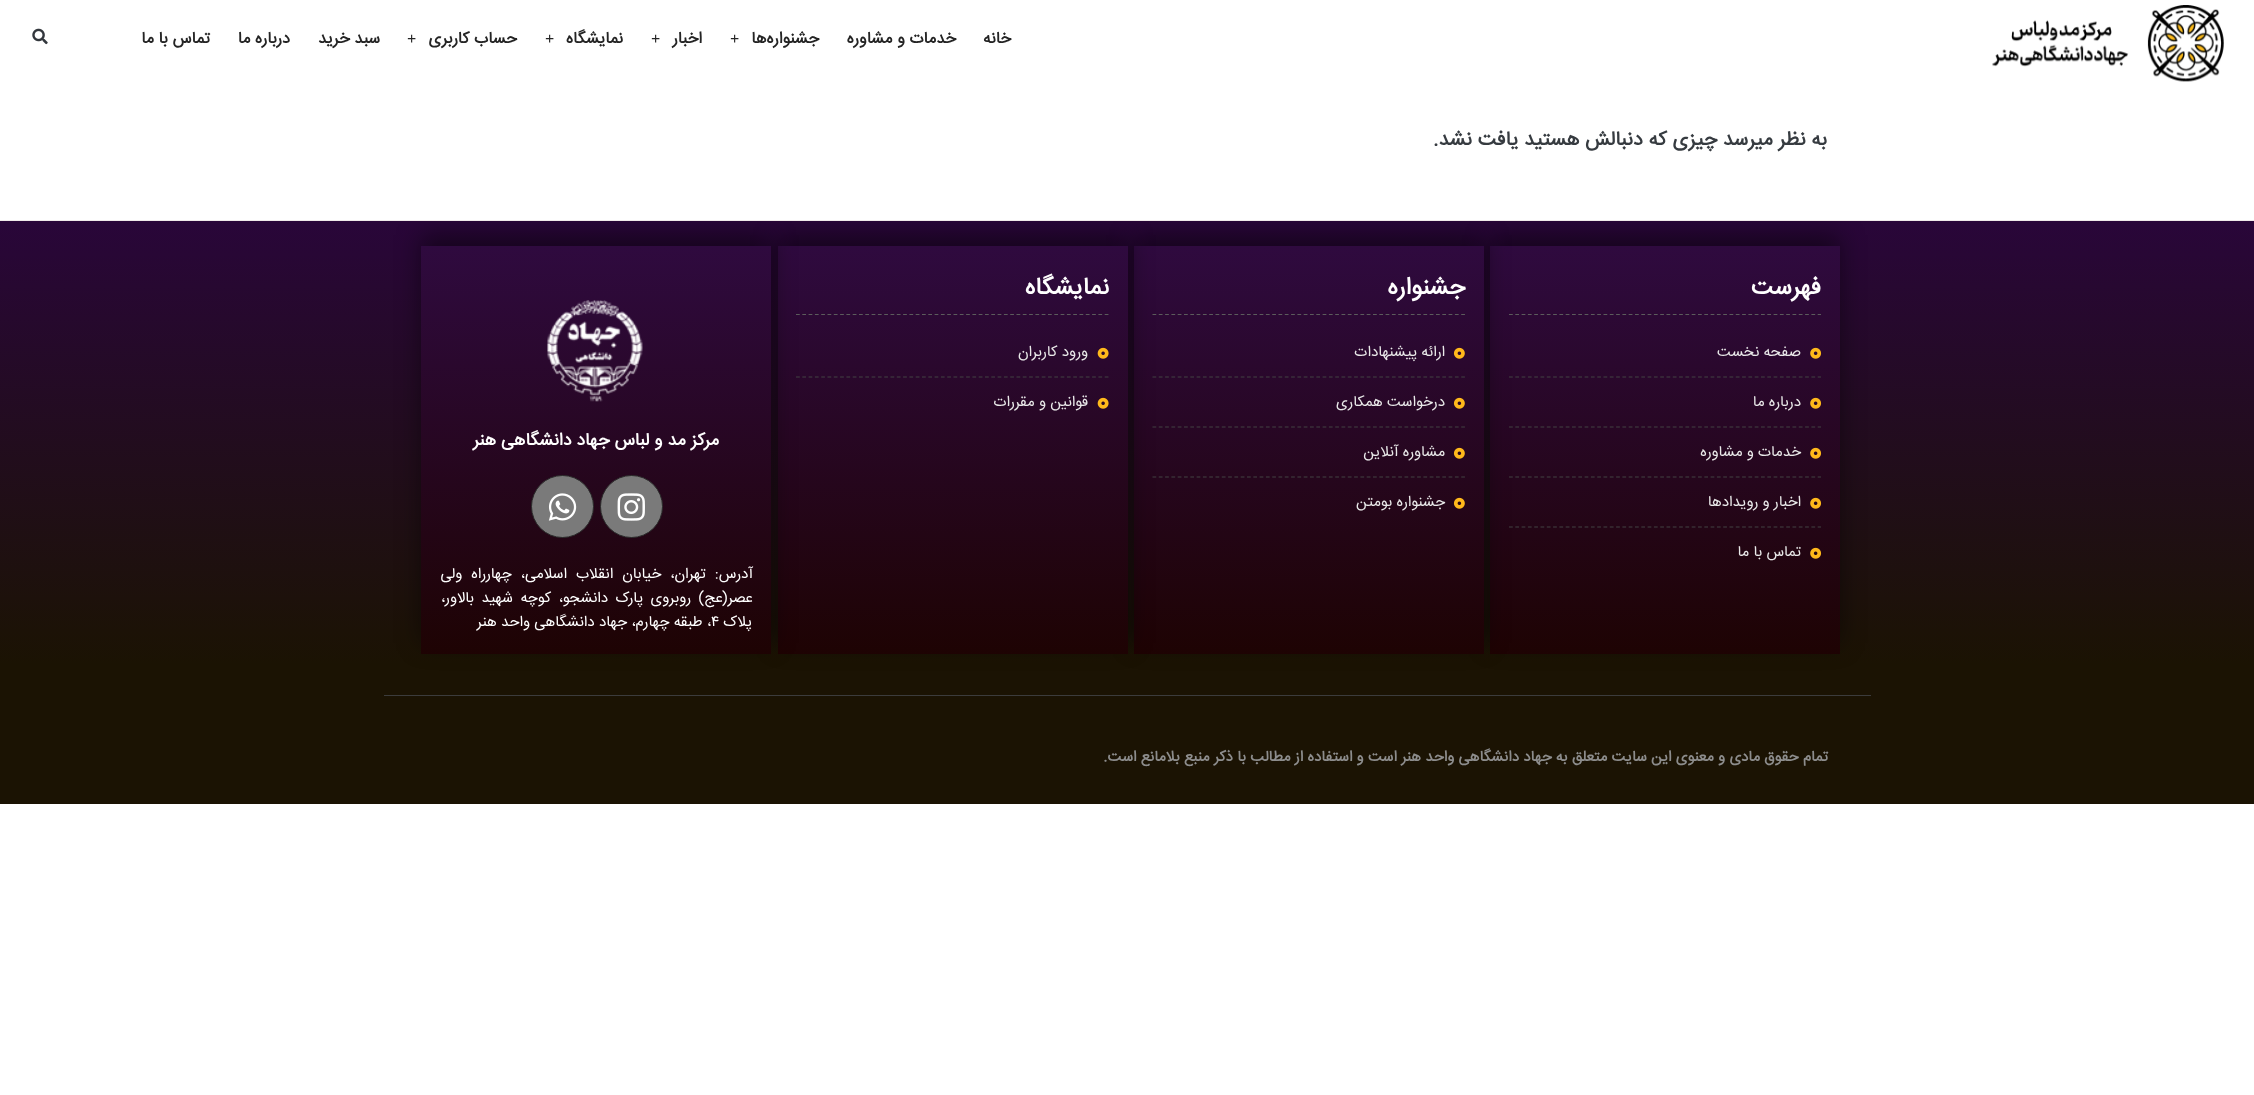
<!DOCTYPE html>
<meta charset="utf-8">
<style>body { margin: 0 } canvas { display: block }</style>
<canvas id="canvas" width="2254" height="1095"></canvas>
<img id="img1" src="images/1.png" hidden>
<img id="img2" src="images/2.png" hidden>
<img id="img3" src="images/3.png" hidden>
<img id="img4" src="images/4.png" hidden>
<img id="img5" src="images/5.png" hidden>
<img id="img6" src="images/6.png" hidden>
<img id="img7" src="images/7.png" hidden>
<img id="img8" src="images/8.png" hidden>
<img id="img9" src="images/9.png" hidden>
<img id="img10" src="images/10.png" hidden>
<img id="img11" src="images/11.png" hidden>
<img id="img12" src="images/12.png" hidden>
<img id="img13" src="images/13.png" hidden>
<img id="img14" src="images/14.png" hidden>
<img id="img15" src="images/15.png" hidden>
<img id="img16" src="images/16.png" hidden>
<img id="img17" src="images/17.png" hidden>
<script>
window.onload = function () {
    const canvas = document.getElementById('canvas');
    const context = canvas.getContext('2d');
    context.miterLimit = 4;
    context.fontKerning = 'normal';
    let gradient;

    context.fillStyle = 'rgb(255, 255, 255)';
    context.fillRect(0, 0, 2254, 1095);
    context.drawImage(document.getElementById('img1'), 1992, 5, 232, 77);
    context.drawImage(document.getElementById('img2'), 32, 28, 16, 17);
    context.drawImage(document.getElementById('img3'), 0, 220, 2254, 1);
    gradient = context.createLinearGradient(1128, 221, 1128, 804);
    gradient.addColorStop(0, 'rgb(41, 6, 57)');
    gradient.addColorStop(0.76, 'rgb(27, 19, 3)');
    context.fillStyle = gradient;
    context.fillRect(0, 221, 2254, 583);
    context.save();
    context.beginPath();
    context.rect(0, 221, 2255, 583);
    context.clip();
    context.fillStyle = 'rgba(0, 0, 0, 0.45)';
    context.filter = 'blur(12.5px)';
    context.beginPath();
    context.rect(1490, 235, 350, 408);
    context.fill();
    context.filter = 'none';
    context.restore();
    gradient = context.createLinearGradient(1665, 246, 1665, 654);
    gradient.addColorStop(0, 'rgb(47, 10, 63)');
    gradient.addColorStop(1, 'rgb(30, 3, 3)');
    context.fillStyle = gradient;
    context.fillRect(1490, 246, 350, 408);
    context.beginPath();
    context.moveTo(1509, 314.5);
    context.lineTo(1821, 314.5);
    context.strokeStyle = 'rgb(92, 92, 92)';
    context.lineWidth = 1.2;
    context.setLineDash([3.75, 2.55]);
    context.stroke();
    context.drawImage(document.getElementById('img4'), 1810, 347, 12, 12);
    context.beginPath();
    context.moveTo(1509, 377);
    context.lineTo(1821, 377);
    context.strokeStyle = 'rgb(67, 67, 67)';
    context.stroke();
    context.drawImage(document.getElementById('img5'), 1810, 397, 12, 12);
    context.beginPath();
    context.moveTo(1509, 427);
    context.lineTo(1821, 427);
    context.stroke();
    context.drawImage(document.getElementById('img6'), 1810, 447, 12, 12);
    context.beginPath();
    context.moveTo(1509, 477);
    context.lineTo(1821, 477);
    context.stroke();
    context.drawImage(document.getElementById('img7'), 1810, 497, 12, 12);
    context.beginPath();
    context.moveTo(1509, 527);
    context.lineTo(1821, 527);
    context.stroke();
    context.drawImage(document.getElementById('img8'), 1810, 547, 12, 12);
    context.save();
    context.beginPath();
    context.rect(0, 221, 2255, 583);
    context.clip();
    context.fillStyle = 'rgba(0, 0, 0, 0.45)';
    context.filter = 'blur(12.5px)';
    context.beginPath();
    context.rect(1134, 235, 350, 408);
    context.fill();
    context.filter = 'none';
    context.restore();
    gradient = context.createLinearGradient(1309, 246, 1309, 654);
    gradient.addColorStop(0, 'rgb(47, 10, 63)');
    gradient.addColorStop(1, 'rgb(30, 3, 3)');
    context.fillStyle = gradient;
    context.fillRect(1134, 246, 350, 408);
    context.beginPath();
    context.moveTo(1152.5, 314.5);
    context.lineTo(1465, 314.5);
    context.strokeStyle = 'rgb(92, 92, 92)';
    context.stroke();
    context.drawImage(document.getElementById('img9'), 1453, 347, 12, 12);
    context.beginPath();
    context.moveTo(1152.5, 377);
    context.lineTo(1465, 377);
    context.strokeStyle = 'rgb(67, 67, 67)';
    context.stroke();
    context.drawImage(document.getElementById('img10'), 1453, 397, 12, 12);
    context.beginPath();
    context.moveTo(1152.5, 427);
    context.lineTo(1465, 427);
    context.stroke();
    context.drawImage(document.getElementById('img11'), 1453, 447, 12, 12);
    context.beginPath();
    context.moveTo(1152.5, 477);
    context.lineTo(1465, 477);
    context.stroke();
    context.drawImage(document.getElementById('img12'), 1453, 497, 12, 12);
    context.save();
    context.beginPath();
    context.rect(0, 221, 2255, 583);
    context.clip();
    context.fillStyle = 'rgba(0, 0, 0, 0.45)';
    context.filter = 'blur(12.5px)';
    context.beginPath();
    context.rect(778, 235, 350, 408);
    context.fill();
    context.filter = 'none';
    context.restore();
    gradient = context.createLinearGradient(953, 246, 953, 654);
    gradient.addColorStop(0, 'rgb(47, 10, 63)');
    gradient.addColorStop(1, 'rgb(30, 3, 3)');
    context.fillStyle = gradient;
    context.fillRect(778, 246, 350, 408);
    context.beginPath();
    context.moveTo(796, 314.5);
    context.lineTo(1109, 314.5);
    context.strokeStyle = 'rgb(92, 92, 92)';
    context.stroke();
    context.drawImage(document.getElementById('img13'), 1097, 347, 12, 12);
    context.beginPath();
    context.moveTo(796, 377);
    context.lineTo(1109, 377);
    context.strokeStyle = 'rgb(67, 67, 67)';
    context.stroke();
    context.drawImage(document.getElementById('img14'), 1097, 397, 12, 12);
    context.save();
    context.beginPath();
    context.rect(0, 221, 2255, 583);
    context.clip();
    context.fillStyle = 'rgba(0, 0, 0, 0.45)';
    context.filter = 'blur(12.5px)';
    context.beginPath();
    context.rect(421, 235, 350, 408);
    context.fill();
    context.filter = 'none';
    context.restore();
    gradient = context.createLinearGradient(596, 246, 596, 654);
    gradient.addColorStop(0, 'rgb(47, 10, 63)');
    gradient.addColorStop(1, 'rgb(30, 3, 3)');
    context.fillStyle = gradient;
    context.fillRect(421, 246, 350, 408);
    context.drawImage(document.getElementById('img15'), 547, 300, 96, 102);
    context.fillStyle = 'rgb(122, 122, 122)';
    context.beginPath();
    context.arc(631.5, 506.5, 31, 0, 2 * Math.PI);
    context.fill();
    context.strokeStyle = 'rgb(42, 42, 42)';
    context.lineWidth = 1;
    context.setLineDash([]);
    context.stroke();
    context.drawImage(document.getElementById('img16'), 617, 493, 28, 28);
    context.beginPath();
    context.arc(562.5, 506.5, 31, 0, 2 * Math.PI);
    context.fill();
    context.stroke();
    context.drawImage(document.getElementById('img17'), 548, 493, 29, 28);
    context.fillStyle = 'rgb(60, 60, 60)';
    context.fillRect(384, 695, 1487, 1);
    context.direction = 'rtl';
    context.font = 'bold 16.25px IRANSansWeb';
    context.fillStyle = 'rgb(36, 36, 36)';
    context.fillText('خانه', 1011, 43);
    context.fillText('خدمات و مشاوره', 956, 43);
    context.fillText('جشنواره‌ها', 819, 43);
    context.direction = 'ltr';
    context.font = 'bold 16.25px Liberation Serif';
    context.fillText('+', 730, 44);
    context.direction = 'rtl';
    context.font = 'bold 16.25px IRANSansWeb';
    context.fillText('اخبار', 702, 43);
    context.direction = 'ltr';
    context.font = 'bold 16.25px Liberation Serif';
    context.fillText('+', 651, 44);
    context.direction = 'rtl';
    context.font = 'bold 16.25px IRANSansWeb';
    context.fillText('نمایشگاه', 623, 43);
    context.direction = 'ltr';
    context.font = 'bold 16.25px Liberation Serif';
    context.fillText('+', 545, 44);
    context.direction = 'rtl';
    context.font = 'bold 16.25px IRANSansWeb';
    context.fillText('حساب کاربری', 517, 43);
    context.direction = 'ltr';
    context.font = 'bold 16.25px Liberation Serif';
    context.fillText('+', 407, 44);
    context.direction = 'rtl';
    context.font = 'bold 16.25px IRANSansWeb';
    context.fillText('سبد خرید', 380, 43);
    context.fillText('درباره ما', 290, 43);
    context.fillText('تماس با ما', 210, 43);
    context.font = 'bold 20px IRANSansWeb';
    context.fillStyle = 'rgb(54, 59, 64)';
    context.fillText('به نظر میرسد چیزی که دنبالش هستید یافت نشد.', 1827, 145);
    context.font = 'bold 24px IRANSansWeb';
    context.fillStyle = 'rgb(255, 255, 255)';
    context.fillText('فهرست', 1821, 294);
    context.font = '15px IRANSansWeb';
    context.fillStyle = 'rgb(233, 233, 233)';
    context.fillText('صفحه نخست', 1801, 356);
    context.fillText('درباره ما', 1801, 406);
    context.fillText('خدمات و مشاوره', 1801, 456);
    context.fillText('اخبار و رویدادها', 1801, 506);
    context.fillText('تماس با ما', 1801, 556);
    context.font = 'bold 24px IRANSansWeb';
    context.fillStyle = 'rgb(255, 255, 255)';
    context.fillText('جشنواره', 1465, 294);
    context.font = '15px IRANSansWeb';
    context.fillStyle = 'rgb(233, 233, 233)';
    context.fillText('ارائه پیشنهادات', 1445, 356);
    context.fillText('درخواست همکاری', 1445, 406);
    context.fillText('مشاوره آنلاین', 1445, 456);
    context.fillText('جشنواره بومتن', 1445, 506);
    context.font = 'bold 24px IRANSansWeb';
    context.fillStyle = 'rgb(255, 255, 255)';
    context.fillText('نمایشگاه', 1109, 294);
    context.font = '15px IRANSansWeb';
    context.fillStyle = 'rgb(233, 233, 233)';
    context.fillText('ورود کاربران', 1088, 356);
    context.fillText('قوانین و مقررات', 1088, 406);
    context.font = 'bold 17.5px IRANSansWeb';
    context.fillStyle = 'rgb(255, 255, 255)';
    context.fillText('مرکز مد و لباس جهاد دانشگاهی هنر', 719, 445);
    context.wordSpacing = '4.75px';
    context.font = '15px IRANSansWeb';
    context.fillText('آدرس: تهران، خیابان انقلاب اسلامی، چهارراه ولی', 753, 578);
    context.wordSpacing = '3.25px';
    context.fillText('عصر(عج) روبروی پارک دانشجو، کوچه شهید بالاور،', 753, 602);
    context.wordSpacing = '0px';
    context.fillText('پلاک', 752, 626);
    context.direction = 'ltr';
    context.fillText('۴', 711, 626);
    context.direction = 'rtl';
    context.fillText('، طبقه چهارم، جهاد دانشگاهی واحد هنر', 711, 626);
    context.font = 'bold 15px IRANSansWeb';
    context.fillStyle = 'rgb(141, 141, 141)';
    context.fillText('تمام حقوق مادی و معنوی این سایت متعلق به جهاد دانشگاهی واحد هنر است و استفاده از مطالب با ذکر منبع بلامانع است.', 1828, 761);
};
</script>
